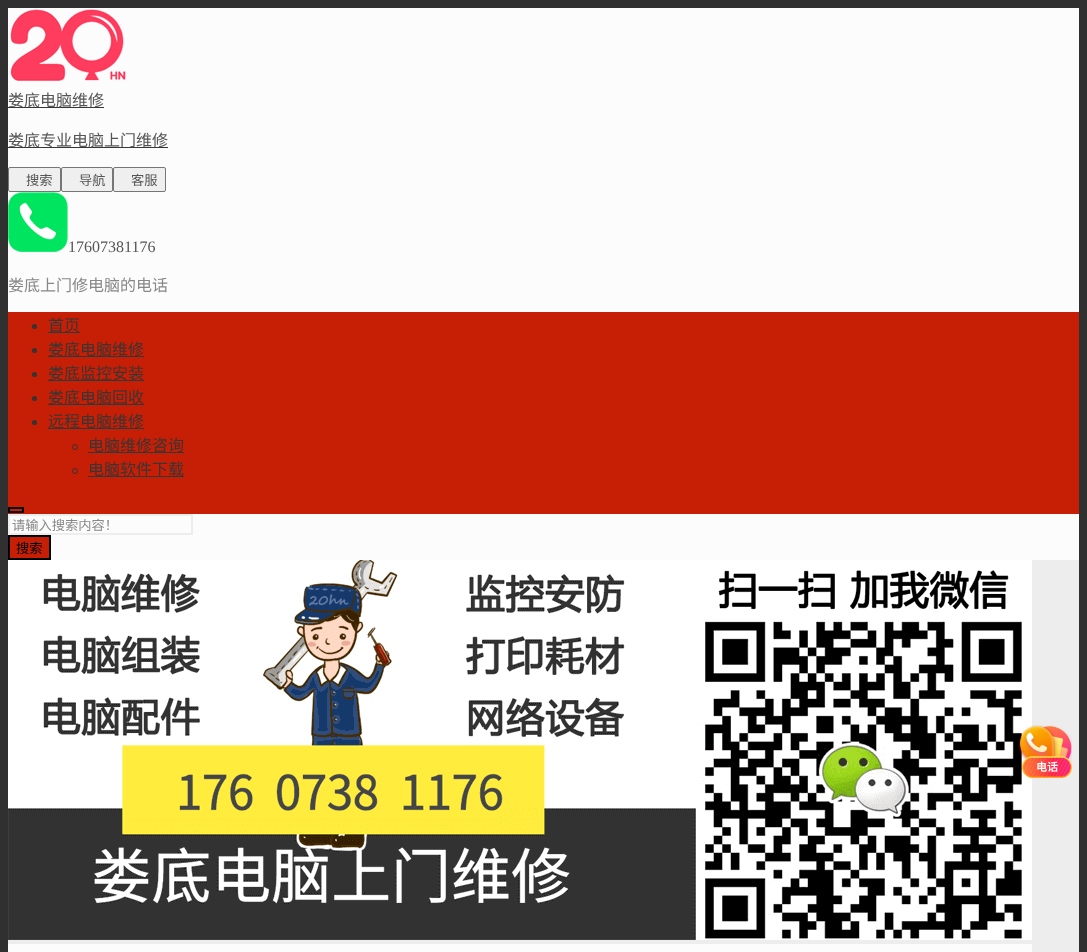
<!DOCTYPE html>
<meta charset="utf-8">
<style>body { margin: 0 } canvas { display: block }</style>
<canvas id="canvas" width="1087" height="952"></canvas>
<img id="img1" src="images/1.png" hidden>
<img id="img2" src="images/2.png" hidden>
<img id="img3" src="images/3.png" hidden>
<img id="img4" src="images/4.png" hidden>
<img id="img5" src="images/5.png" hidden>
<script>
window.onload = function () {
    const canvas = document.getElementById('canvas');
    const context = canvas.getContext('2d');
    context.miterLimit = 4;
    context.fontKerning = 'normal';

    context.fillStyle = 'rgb(48, 48, 48)';
    context.fillRect(0, 0, 1087, 952);
    context.fillStyle = 'rgb(237, 237, 237)';
    context.fillRect(8, 560, 1071, 392);
    context.fillStyle = 'rgb(252, 252, 252)';
    context.fillRect(8, 8, 1071, 304);
    context.drawImage(document.getElementById('img1'), 10, 9, 116, 72);
    context.fillStyle = 'rgb(54, 54, 54)';
    context.fillRect(8, 107, 96, 1);
    context.fillRect(8, 147, 160, 1);
    context.fillStyle = 'rgb(239, 239, 239)';
    context.beginPath();
    context.roundRect(8.5, 167.5, 52, 24, 1.5);
    context.fill();
    context.strokeStyle = 'rgb(118, 118, 118)';
    context.stroke();
    context.beginPath();
    context.roundRect(61.5, 167.5, 51, 24, 1.5);
    context.fill();
    context.stroke();
    context.beginPath();
    context.roundRect(113.5, 167.5, 52, 24, 1.5);
    context.fill();
    context.stroke();
    context.drawImage(document.getElementById('img2'), 8, 192, 60, 60);
    context.fillStyle = 'rgb(199, 31, 5)';
    context.fillRect(8, 312, 1071, 202);
    context.fillStyle = 'rgb(51, 51, 51)';
    context.beginPath();
    context.arc(34.5, 326.5, 2.5, 0, 2 * Math.PI);
    context.fill();
    context.fillStyle = 'rgb(54, 54, 54)';
    context.fillRect(48, 332, 32, 1);
    context.fillStyle = 'rgb(51, 51, 51)';
    context.beginPath();
    context.arc(34.5, 350.5, 2.5, 0, 2 * Math.PI);
    context.fill();
    context.fillStyle = 'rgb(54, 54, 54)';
    context.fillRect(48, 356, 96, 1);
    context.fillStyle = 'rgb(51, 51, 51)';
    context.beginPath();
    context.arc(34.5, 374.5, 2.5, 0, 2 * Math.PI);
    context.fill();
    context.fillStyle = 'rgb(54, 54, 54)';
    context.fillRect(48, 380, 96, 1);
    context.fillStyle = 'rgb(51, 51, 51)';
    context.beginPath();
    context.arc(34.5, 398.5, 2.5, 0, 2 * Math.PI);
    context.fill();
    context.fillStyle = 'rgb(54, 54, 54)';
    context.fillRect(48, 404, 96, 1);
    context.fillStyle = 'rgb(51, 51, 51)';
    context.beginPath();
    context.arc(34.5, 422.5, 2.5, 0, 2 * Math.PI);
    context.fill();
    context.fillStyle = 'rgb(54, 54, 54)';
    context.fillRect(48, 428, 96, 1);
    context.beginPath();
    context.arc(75, 447, 2.5, 0, 2 * Math.PI);
    context.strokeStyle = 'rgb(51, 51, 51)';
    context.stroke();
    context.fillRect(88, 452, 96, 1);
    context.beginPath();
    context.arc(75, 471, 2.5, 0, 2 * Math.PI);
    context.stroke();
    context.fillRect(88, 476, 96, 1);
    context.strokeStyle = 'rgb(0, 0, 0)';
    context.lineWidth = 2;
    context.strokeRect(9, 508, 14, 4);
    context.fillStyle = 'rgb(253, 252, 252)';
    context.fillRect(10, 514, 1069, 46);
    context.strokeStyle = 'rgb(237, 237, 237)';
    context.strokeRect(9, 515, 183, 19);
    context.fillStyle = 'rgb(199, 31, 5)';
    context.beginPath();
    context.rect(9, 536, 41, 23);
    context.fill();
    context.strokeStyle = 'rgb(0, 0, 0)';
    context.stroke();
    context.drawImage(document.getElementById('img3'), 8, 560, 1024, 380);
    context.fillStyle = 'rgb(253, 252, 252)';
    context.fillRect(8, 944, 1024, 8);
    context.drawImage(document.getElementById('img4'), 1018, 725, 54, 53);
    context.drawImage(document.getElementById('img5'), 1024, 732, 25, 24);
    context.font = '16px Noto Sans CJK SC';
    context.fillStyle = 'rgb(85, 85, 85)';
    context.fillText('娄底电脑维修', 8, 106);
    context.fillText('娄底专业电脑上门维修', 8, 146);
    context.font = '13.25px Noto Sans CJK SC';
    context.fillText('搜索', 26, 185);
    context.fillText('导航', 79, 185);
    context.fillText('客服', 131, 185);
    context.font = '16px Liberation Serif';
    context.fillText('17607381176', 68, 252);
    context.font = '16px Noto Sans CJK SC';
    context.fillStyle = 'rgb(136, 136, 136)';
    context.fillText('娄底上门修电脑的电话', 8, 291);
    context.fillStyle = 'rgb(54, 54, 54)';
    context.fillText('首页', 48, 331);
    context.fillText('娄底电脑维修', 48, 355);
    context.fillText('娄底监控安装', 48, 379);
    context.fillText('娄底电脑回收', 48, 403);
    context.fillText('远程电脑维修', 48, 427);
    context.fillText('电脑维修咨询', 88, 451);
    context.fillText('电脑软件下载', 88, 475);
    context.font = '13.25px Noto Sans CJK SC';
    context.fillStyle = 'rgb(136, 136, 136)';
    context.fillText('请输入搜索内容！', 12, 530);
    context.fillStyle = 'rgb(0, 0, 0)';
    context.fillText('搜索', 16, 553);
    context.font = 'bold 11px Noto Sans CJK SC';
    context.fillStyle = 'rgb(255, 255, 255)';
    context.fillText('电话', 1036, 771);
};
</script>
